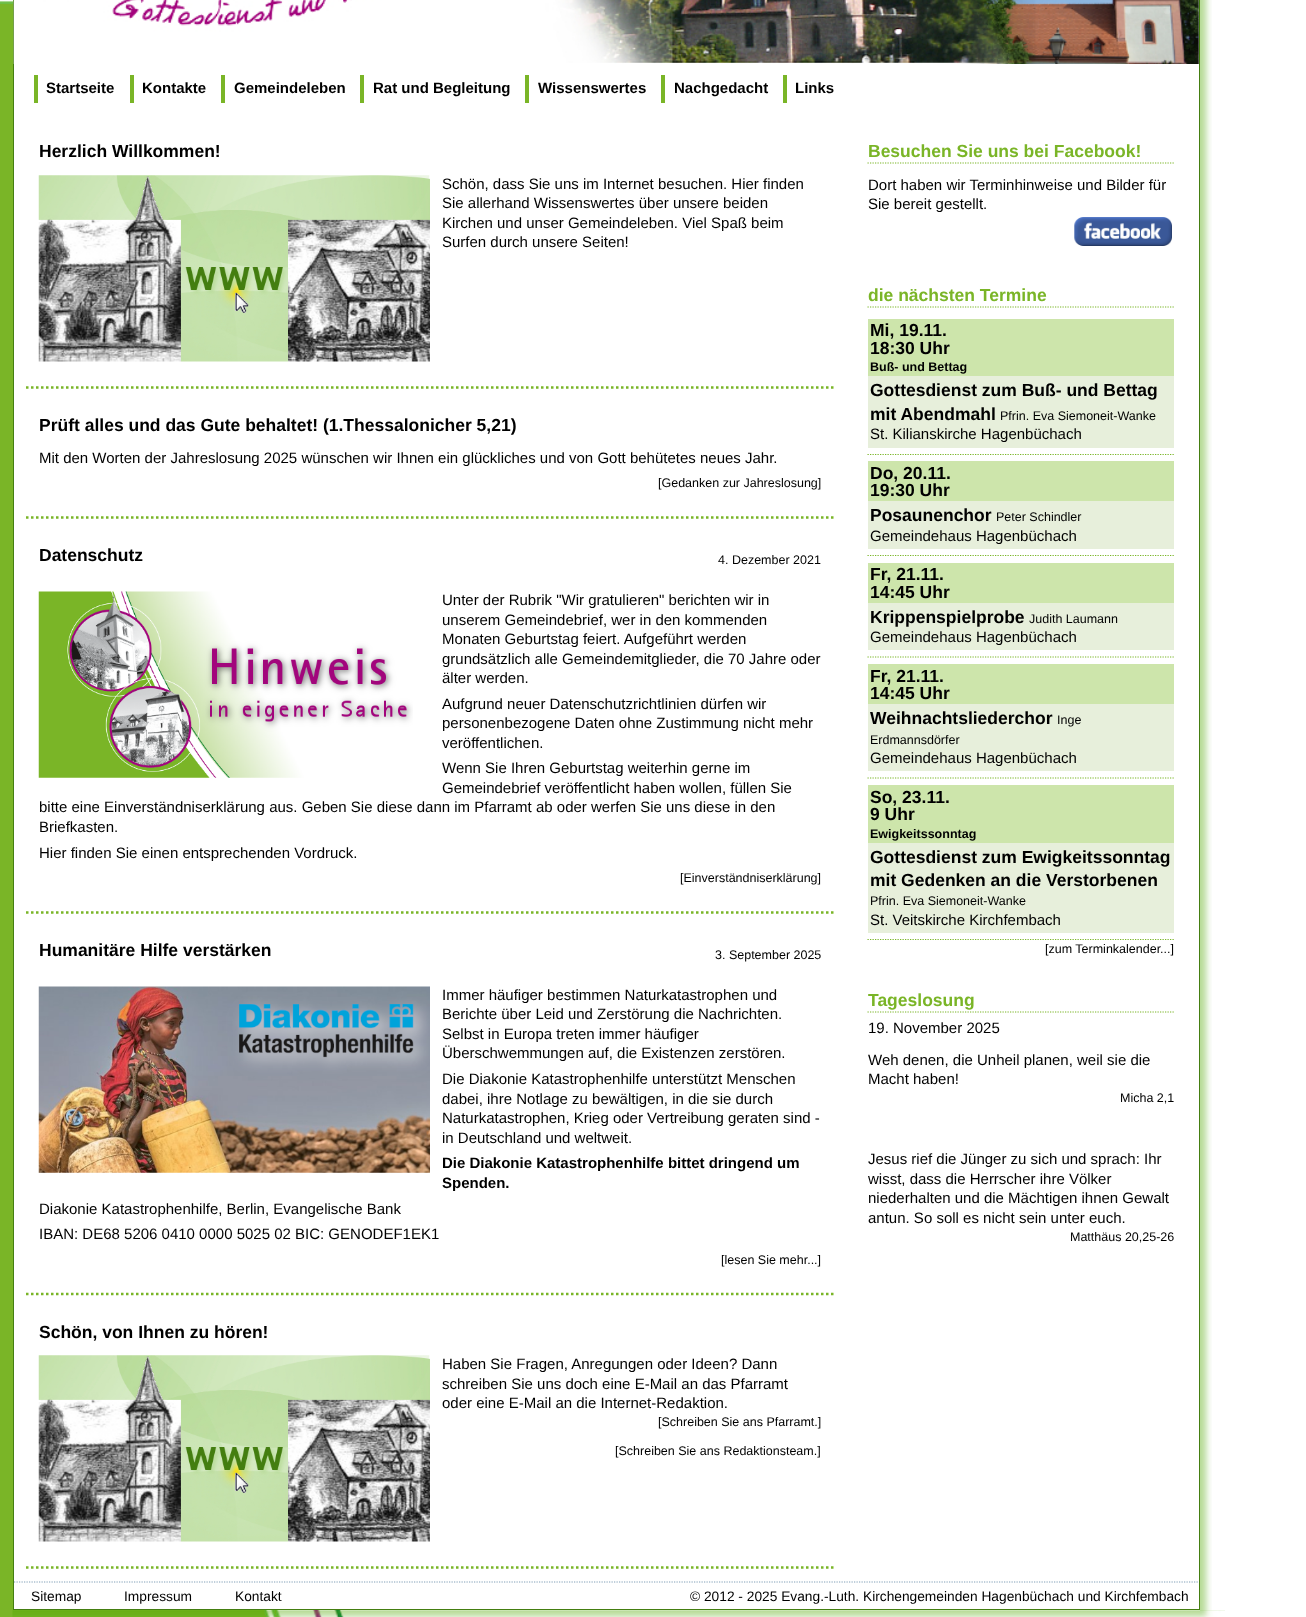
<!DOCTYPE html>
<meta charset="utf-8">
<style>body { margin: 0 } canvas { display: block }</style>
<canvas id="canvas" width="1306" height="1617"></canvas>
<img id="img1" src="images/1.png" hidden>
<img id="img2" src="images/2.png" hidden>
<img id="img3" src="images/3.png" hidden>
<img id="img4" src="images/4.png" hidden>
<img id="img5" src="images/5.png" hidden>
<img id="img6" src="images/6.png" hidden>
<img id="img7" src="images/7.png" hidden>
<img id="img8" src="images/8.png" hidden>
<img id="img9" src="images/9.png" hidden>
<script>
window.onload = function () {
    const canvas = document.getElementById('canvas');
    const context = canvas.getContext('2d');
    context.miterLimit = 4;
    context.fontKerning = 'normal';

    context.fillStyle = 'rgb(255, 255, 255)';
    context.fillRect(0, 0, 1306, 1617);
    context.drawImage(document.getElementById('img1'), 0, 0, 344, 1617);
    context.drawImage(document.getElementById('img2'), 1200, 0, 12, 1611);
    context.fillRect(14, 0, 327, 1609);
    context.strokeStyle = 'rgb(68, 126, 17)';
    context.strokeRect(13.5, -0.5, 1186, 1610);
    context.drawImage(document.getElementById('img3'), 13, 0, 1186, 64);
    context.fillStyle = 'rgb(122, 181, 39)';
    context.fillRect(34, 75, 4, 28);
    context.fillRect(130, 75, 4, 28);
    context.fillRect(221, 75, 4, 28);
    context.fillRect(360, 75, 4, 28);
    context.fillRect(525, 75, 4, 28);
    context.fillRect(661, 75, 4, 28);
    context.fillRect(783, 75, 4, 28);
    context.beginPath();
    context.moveTo(26, 387.5);
    context.lineTo(834, 387.5);
    context.strokeStyle = 'rgb(122, 181, 39)';
    context.lineWidth = 2.5;
    context.setLineDash([2.5, 2.5]);
    context.stroke();
    context.drawImage(document.getElementById('img4'), 38, 175, 392, 187);
    context.beginPath();
    context.moveTo(867.5, 163);
    context.lineTo(1174, 163);
    context.lineWidth = 1.2;
    context.setLineDash([1.25, 1.25]);
    context.stroke();
    context.drawImage(document.getElementById('img5'), 1074, 217, 98, 29);
    context.beginPath();
    context.moveTo(867.5, 307);
    context.lineTo(1174, 307);
    context.stroke();
    context.beginPath();
    context.moveTo(867.5, 454.5);
    context.lineTo(1174, 454.5);
    context.stroke();
    context.fillStyle = 'rgb(205, 229, 171)';
    context.fillRect(868, 319, 306, 57);
    context.fillStyle = 'rgb(231, 239, 219)';
    context.fillRect(868, 376, 306, 72);
    context.beginPath();
    context.moveTo(867.5, 555.5);
    context.lineTo(1174, 555.5);
    context.stroke();
    context.fillStyle = 'rgb(205, 229, 171)';
    context.fillRect(868, 461, 306, 40);
    context.fillStyle = 'rgb(231, 239, 219)';
    context.fillRect(868, 501, 306, 48);
    context.beginPath();
    context.moveTo(867.5, 657);
    context.lineTo(1174, 657);
    context.stroke();
    context.fillStyle = 'rgb(205, 229, 171)';
    context.fillRect(868, 563, 306, 40);
    context.fillStyle = 'rgb(231, 239, 219)';
    context.fillRect(868, 603, 306, 47);
    context.beginPath();
    context.moveTo(867.5, 778);
    context.lineTo(1174, 778);
    context.stroke();
    context.fillStyle = 'rgb(205, 229, 171)';
    context.fillRect(868, 664, 306, 40);
    context.fillStyle = 'rgb(231, 239, 219)';
    context.fillRect(868, 704, 306, 67);
    context.beginPath();
    context.moveTo(867.5, 939.5);
    context.lineTo(1174, 939.5);
    context.stroke();
    context.fillStyle = 'rgb(205, 229, 171)';
    context.fillRect(868, 785, 306, 58);
    context.fillStyle = 'rgb(231, 239, 219)';
    context.fillRect(868, 843, 306, 90);
    context.beginPath();
    context.moveTo(867.5, 1012);
    context.lineTo(1174, 1012);
    context.stroke();
    context.beginPath();
    context.moveTo(26, 517.5);
    context.lineTo(834, 517.5);
    context.lineWidth = 2.5;
    context.setLineDash([2.5, 2.5]);
    context.stroke();
    context.beginPath();
    context.moveTo(26, 912.5);
    context.lineTo(834, 912.5);
    context.stroke();
    context.drawImage(document.getElementById('img6'), 38, 591, 375, 187);
    context.beginPath();
    context.moveTo(26, 1294);
    context.lineTo(834, 1294);
    context.stroke();
    context.drawImage(document.getElementById('img7'), 38, 986, 392, 187);
    context.beginPath();
    context.moveTo(26, 1567.5);
    context.lineTo(834, 1567.5);
    context.stroke();
    context.drawImage(document.getElementById('img4'), 38, 1355, 392, 187);
    context.beginPath();
    context.moveTo(14, 1582);
    context.lineTo(1199, 1582);
    context.strokeStyle = 'rgb(129, 160, 184)';
    context.lineWidth = 1.2;
    context.setLineDash([1.25, 1.25]);
    context.stroke();
    context.drawImage(document.getElementById('img8'), 12, 1610, 1213, 7);
    context.drawImage(document.getElementById('img9'), 1200, 1610, 25, 7);
    context.font = 'bold 15px Liberation Sans';
    context.fillStyle = 'rgb(0, 0, 0)';
    context.fillText('Startseite', 46, 93);
    context.fillText('Kontakte', 142, 93);
    context.fillText('Gemeindeleben', 234, 93);
    context.fillText('Rat und Begleitung', 373, 93);
    context.fillText('Wissenswertes', 538, 93);
    context.fillText('Nachgedacht', 674, 93);
    context.fillText('Links', 795, 93);
    context.font = 'bold 17.5px Liberation Sans';
    context.fillText('Herzlich Willkommen!', 39, 157);
    context.font = '15px Liberation Sans';
    context.fillText('Schön, dass Sie uns im Internet besuchen. Hier finden', 442, 189);
    context.fillText('Sie allerhand Wissenswertes über unsere beiden', 442, 208);
    context.fillText('Kirchen und unser Gemeindeleben. Viel Spaß beim', 442, 228);
    context.fillText('Surfen durch unsere Seiten!', 442, 247);
    context.font = 'bold 17.5px Liberation Sans';
    context.fillStyle = 'rgb(122, 181, 39)';
    context.fillText('Besuchen Sie uns bei Facebook!', 868, 157);
    context.font = '15px Liberation Sans';
    context.fillStyle = 'rgb(0, 0, 0)';
    context.fillText('Dort haben wir Terminhinweise und Bilder für', 868, 190);
    context.fillText('Sie bereit gestellt.', 868, 209);
    context.font = 'bold 17.5px Liberation Sans';
    context.fillStyle = 'rgb(122, 181, 39)';
    context.fillText('die nächsten Termine', 868, 301);
    context.fillStyle = 'rgb(0, 0, 0)';
    context.fillText('Mi, 19.11.', 870, 336);
    context.fillText('18:30 Uhr', 870, 354);
    context.font = 'bold 12.5px Liberation Sans';
    context.fillText('Buß- und Bettag', 870, 371);
    context.font = 'bold 17.5px Liberation Sans';
    context.fillText('Gottesdienst zum Buß- und Bettag', 870, 396);
    context.fillText('mit Abendmahl', 870, 420);
    context.font = '12.5px Liberation Sans';
    context.fillText('Pfrin. Eva Siemoneit-Wanke', 1000, 420);
    context.font = '15px Liberation Sans';
    context.fillText('St. Kilianskirche Hagenbüchach', 870, 439);
    context.font = 'bold 17.5px Liberation Sans';
    context.fillText('Do, 20.11.', 870, 479);
    context.fillText('19:30 Uhr', 870, 496);
    context.fillText('Posaunenchor', 870, 521);
    context.font = '12.5px Liberation Sans';
    context.fillText('Peter Schindler', 996, 521);
    context.font = '15px Liberation Sans';
    context.fillText('Gemeindehaus Hagenbüchach', 870, 541);
    context.font = 'bold 17.5px Liberation Sans';
    context.fillText('Fr, 21.11.', 870, 580);
    context.fillText('14:45 Uhr', 870, 598);
    context.fillText('Krippenspielprobe', 870, 623);
    context.font = '12.5px Liberation Sans';
    context.fillText('Judith Laumann', 1029, 623);
    context.font = '15px Liberation Sans';
    context.fillText('Gemeindehaus Hagenbüchach', 870, 642);
    context.font = 'bold 17.5px Liberation Sans';
    context.fillText('Fr, 21.11.', 870, 682);
    context.fillText('14:45 Uhr', 870, 699);
    context.fillText('Weihnachtsliederchor', 870, 724);
    context.font = '12.5px Liberation Sans';
    context.fillText('Inge', 1057, 724);
    context.fillText('Erdmannsdörfer', 870, 744);
    context.font = '15px Liberation Sans';
    context.fillText('Gemeindehaus Hagenbüchach', 870, 763);
    context.font = 'bold 17.5px Liberation Sans';
    context.fillText('So, 23.11.', 870, 803);
    context.fillText('9 Uhr', 870, 820);
    context.font = 'bold 12.5px Liberation Sans';
    context.fillText('Ewigkeitssonntag', 870, 838);
    context.font = 'bold 17.5px Liberation Sans';
    context.fillText('Gottesdienst zum Ewigkeitssonntag', 870, 863);
    context.fillText('mit Gedenken an die Verstorbenen', 870, 886);
    context.font = '12.5px Liberation Sans';
    context.fillText('Pfrin. Eva Siemoneit-Wanke', 870, 905);
    context.font = '15px Liberation Sans';
    context.fillText('St. Veitskirche Kirchfembach', 870, 925);
    context.font = '12.5px Liberation Sans';
    context.fillText('[zum Terminkalender...]', 1045, 953);
    context.font = 'bold 17.5px Liberation Sans';
    context.fillStyle = 'rgb(122, 181, 39)';
    context.fillText('Tageslosung', 868, 1006);
    context.font = '15px Liberation Sans';
    context.fillStyle = 'rgb(0, 0, 0)';
    context.fillText('19. November 2025', 868, 1033);
    context.fillText('Weh denen, die Unheil planen, weil sie die', 868, 1065);
    context.fillText('Macht haben!', 868, 1084);
    context.font = '12.5px Liberation Sans';
    context.fillText('Micha 2,1', 1120, 1102);
    context.font = '15px Liberation Sans';
    context.fillText('Jesus rief die Jünger zu sich und sprach: Ihr', 868, 1164);
    context.fillText('wisst, dass die Herrscher ihre Völker', 868, 1184);
    context.fillText('niederhalten und die Mächtigen ihnen Gewalt', 868, 1203);
    context.fillText('antun. So soll es nicht sein unter euch.', 868, 1223);
    context.font = '12.5px Liberation Sans';
    context.fillText('Matthäus 20,25-26', 1070, 1241);
    context.font = 'bold 17.5px Liberation Sans';
    context.fillText('Prüft alles und das Gute behaltet! (1.Thessalonicher 5,21)', 39, 431);
    context.font = '15px Liberation Sans';
    context.fillText('Mit den Worten der Jahreslosung 2025 wünschen wir Ihnen ein glückliches und von Gott behütetes neues Jahr.', 39, 463);
    context.font = '12.5px Liberation Sans';
    context.fillText('[Gedanken zur Jahreslosung]', 658, 487);
    context.font = 'bold 17.5px Liberation Sans';
    context.fillText('Datenschutz', 39, 561);
    context.font = '12.5px Liberation Sans';
    context.fillText('4. Dezember 2021', 718, 564);
    context.font = '15px Liberation Sans';
    context.fillText('Unter der Rubrik "Wir gratulieren" berichten wir in', 442, 605);
    context.fillText('unserem Gemeindebrief, wer in den kommenden', 442, 625);
    context.fillText('Monaten Geburtstag feiert. Aufgeführt werden', 442, 644);
    context.fillText('grundsätzlich alle Gemeindemitglieder, die 70 Jahre oder', 442, 664);
    context.fillText('älter werden.', 442, 683);
    context.fillText('Aufgrund neuer Datenschutzrichtlinien dürfen wir', 442, 709);
    context.fillText('personenbezogene Daten ohne Zustimmung nicht mehr', 442, 728);
    context.fillText('veröffentlichen.', 442, 748);
    context.fillText('Wenn Sie Ihren Geburtstag weiterhin gerne im', 442, 773);
    context.fillText('Gemeindebrief veröffentlicht haben wollen, füllen Sie', 442, 793);
    context.fillText('bitte eine Einverständniserklärung aus. Geben Sie diese dann im Pfarramt ab oder werfen Sie uns diese in den', 39, 812);
    context.fillText('Briefkasten.', 39, 832);
    context.fillText('Hier finden Sie einen entsprechenden Vordruck.', 39, 858);
    context.font = '12.5px Liberation Sans';
    context.fillText('[Einverständniserklärung]', 680, 882);
    context.font = 'bold 17.5px Liberation Sans';
    context.fillText('Humanitäre Hilfe verstärken', 39, 956);
    context.font = '12.5px Liberation Sans';
    context.fillText('3. September 2025', 715, 959);
    context.font = '15px Liberation Sans';
    context.fillText('Immer häufiger bestimmen Naturkatastrophen und', 442, 1000);
    context.fillText('Berichte über Leid und Zerstörung die Nachrichten.', 442, 1019);
    context.fillText('Selbst in Europa treten immer häufiger', 442, 1039);
    context.fillText('Überschwemmungen auf, die Existenzen zerstören.', 442, 1058);
    context.fillText('Die Diakonie Katastrophenhilfe unterstützt Menschen', 442, 1084);
    context.fillText('dabei, ihre Notlage zu bewältigen, in die sie durch', 442, 1104);
    context.fillText('Naturkatastrophen, Krieg oder Vertreibung geraten sind -', 442, 1123);
    context.fillText('in Deutschland und weltweit.', 442, 1143);
    context.font = 'bold 15px Liberation Sans';
    context.fillText('Die Diakonie Katastrophenhilfe bittet dringend um', 442, 1168);
    context.fillText('Spenden.', 442, 1188);
    context.font = '15px Liberation Sans';
    context.fillText('Diakonie Katastrophenhilfe, Berlin, Evangelische Bank', 39, 1214);
    context.fillText('IBAN: DE68 5206 0410 0000 5025 02 BIC: GENODEF1EK1', 39, 1239);
    context.font = '12.5px Liberation Sans';
    context.fillText('[lesen Sie mehr...]', 721, 1264);
    context.font = 'bold 17.5px Liberation Sans';
    context.fillText('Schön, von Ihnen zu hören!', 39, 1338);
    context.font = '15px Liberation Sans';
    context.fillText('Haben Sie Fragen, Anregungen oder Ideen? Dann', 442, 1369);
    context.fillText('schreiben Sie uns doch eine E-Mail an das Pfarramt', 442, 1389);
    context.fillText('oder eine E-Mail an die Internet-Redaktion.', 442, 1408);
    context.font = '12.5px Liberation Sans';
    context.fillText('[Schreiben Sie ans Pfarramt.]', 658, 1426);
    context.fillText('[Schreiben Sie ans Redaktionsteam.]', 615, 1455);
    context.font = '13.75px Liberation Sans';
    context.fillText('Sitemap', 31, 1601);
    context.fillText('Impressum', 124, 1601);
    context.fillText('Kontakt', 235, 1601);
    context.fillText('© 2012 - 2025 Evang.-Luth. Kirchengemeinden Hagenbüchach und Kirchfembach', 690, 1601);
};
</script>
